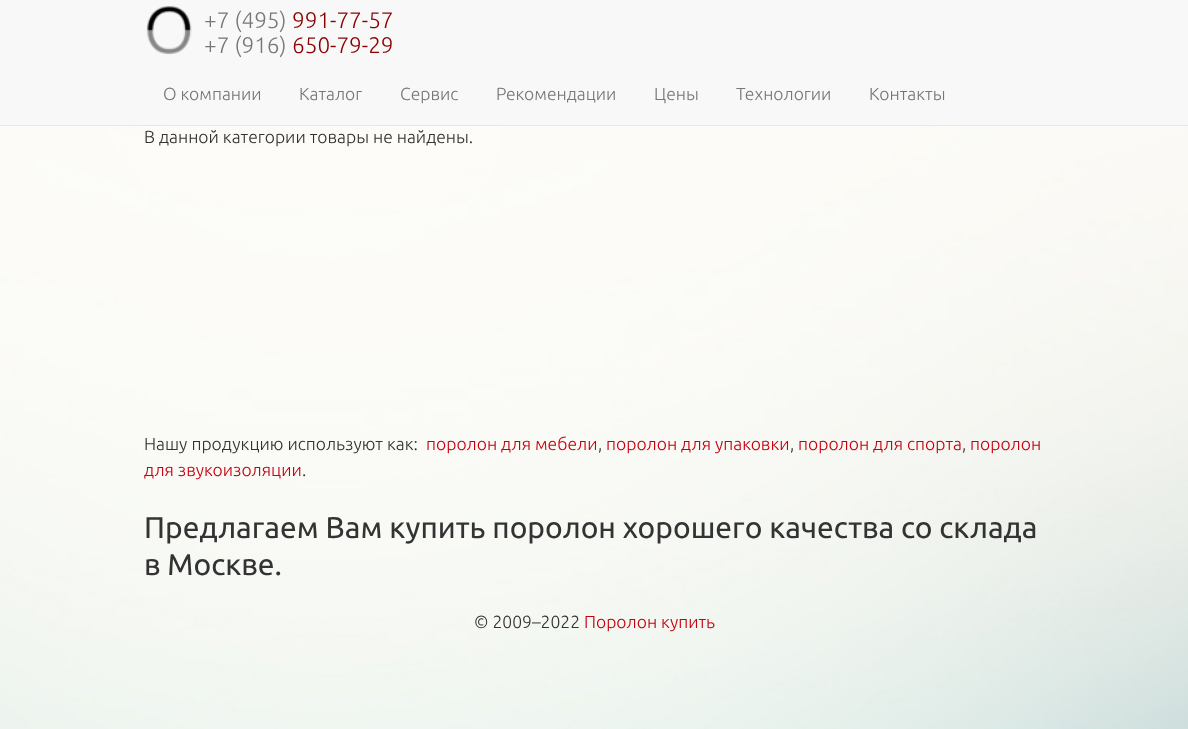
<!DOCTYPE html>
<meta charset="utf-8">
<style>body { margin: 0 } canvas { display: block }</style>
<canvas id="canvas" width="1188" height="729"></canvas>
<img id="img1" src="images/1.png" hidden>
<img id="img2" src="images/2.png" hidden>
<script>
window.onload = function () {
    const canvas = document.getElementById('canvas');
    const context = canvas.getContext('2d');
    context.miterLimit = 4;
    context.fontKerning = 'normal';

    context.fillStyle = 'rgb(255, 255, 255)';
    context.fillRect(0, 0, 1188, 729);
    context.drawImage(document.getElementById('img1'), 0, 126, 1188, 603);
    context.fillStyle = 'rgb(248, 248, 248)';
    context.fillRect(0, 0, 1188, 125);
    context.fillStyle = 'rgb(231, 231, 231)';
    context.fillRect(0, 125, 1188, 1);
    context.drawImage(document.getElementById('img2'), 146, 6, 46, 49);
    context.font = '300 22.5px Ubuntu';
    context.fillStyle = 'rgb(119, 119, 119)';
    context.fillText('+7 (495)', 204, 28);
    context.fillStyle = 'rgb(136, 0, 0)';
    context.fillText('991-77-57', 292, 28);
    context.fillStyle = 'rgb(119, 119, 119)';
    context.fillText('+7 (916)', 204, 53);
    context.fillStyle = 'rgb(136, 0, 0)';
    context.fillText('650-79-29', 292, 53);
    context.font = '300 17.5px Ubuntu';
    context.fillStyle = 'rgb(119, 119, 119)';
    context.fillText('О компании', 163, 100);
    context.fillText('Каталог', 299, 100);
    context.fillText('Сервис', 400, 100);
    context.fillText('Рекомендации', 496, 100);
    context.fillText('Цены', 654, 100);
    context.fillText('Технологии', 736, 100);
    context.fillText('Контакты', 869, 100);
    context.fillStyle = 'rgb(51, 51, 51)';
    context.fillText('В данной категории товары не найдены.', 144, 143);
    context.fillText('Нашу продукцию используют как:', 144, 450);
    context.fillStyle = 'rgb(199, 0, 15)';
    context.fillText('поролон для мебели', 426, 450);
    context.fillStyle = 'rgb(51, 51, 51)';
    context.fillText(',', 598, 450);
    context.fillStyle = 'rgb(199, 0, 15)';
    context.fillText('поролон для упаковки', 606, 450);
    context.fillStyle = 'rgb(51, 51, 51)';
    context.fillText(',', 790, 450);
    context.fillStyle = 'rgb(199, 0, 15)';
    context.fillText('поролон для спорта', 798, 450);
    context.fillStyle = 'rgb(51, 51, 51)';
    context.fillText(',', 962, 450);
    context.fillStyle = 'rgb(199, 0, 15)';
    context.fillText('поролон', 970, 450);
    context.fillText('для звукоизоляции', 144, 476);
    context.fillStyle = 'rgb(51, 51, 51)';
    context.fillText('.', 302, 476);
    context.font = '30px Ubuntu';
    context.fillText('Предлагаем Вам купить поролон хорошего качества со склада', 144, 538);
    context.fillText('в Москве.', 144, 575);
    context.font = '300 17.5px Ubuntu';
    context.fillText('© 2009–2022', 474, 628);
    context.fillStyle = 'rgb(199, 0, 15)';
    context.fillText('Поролон купить', 584, 628);
};
</script>
